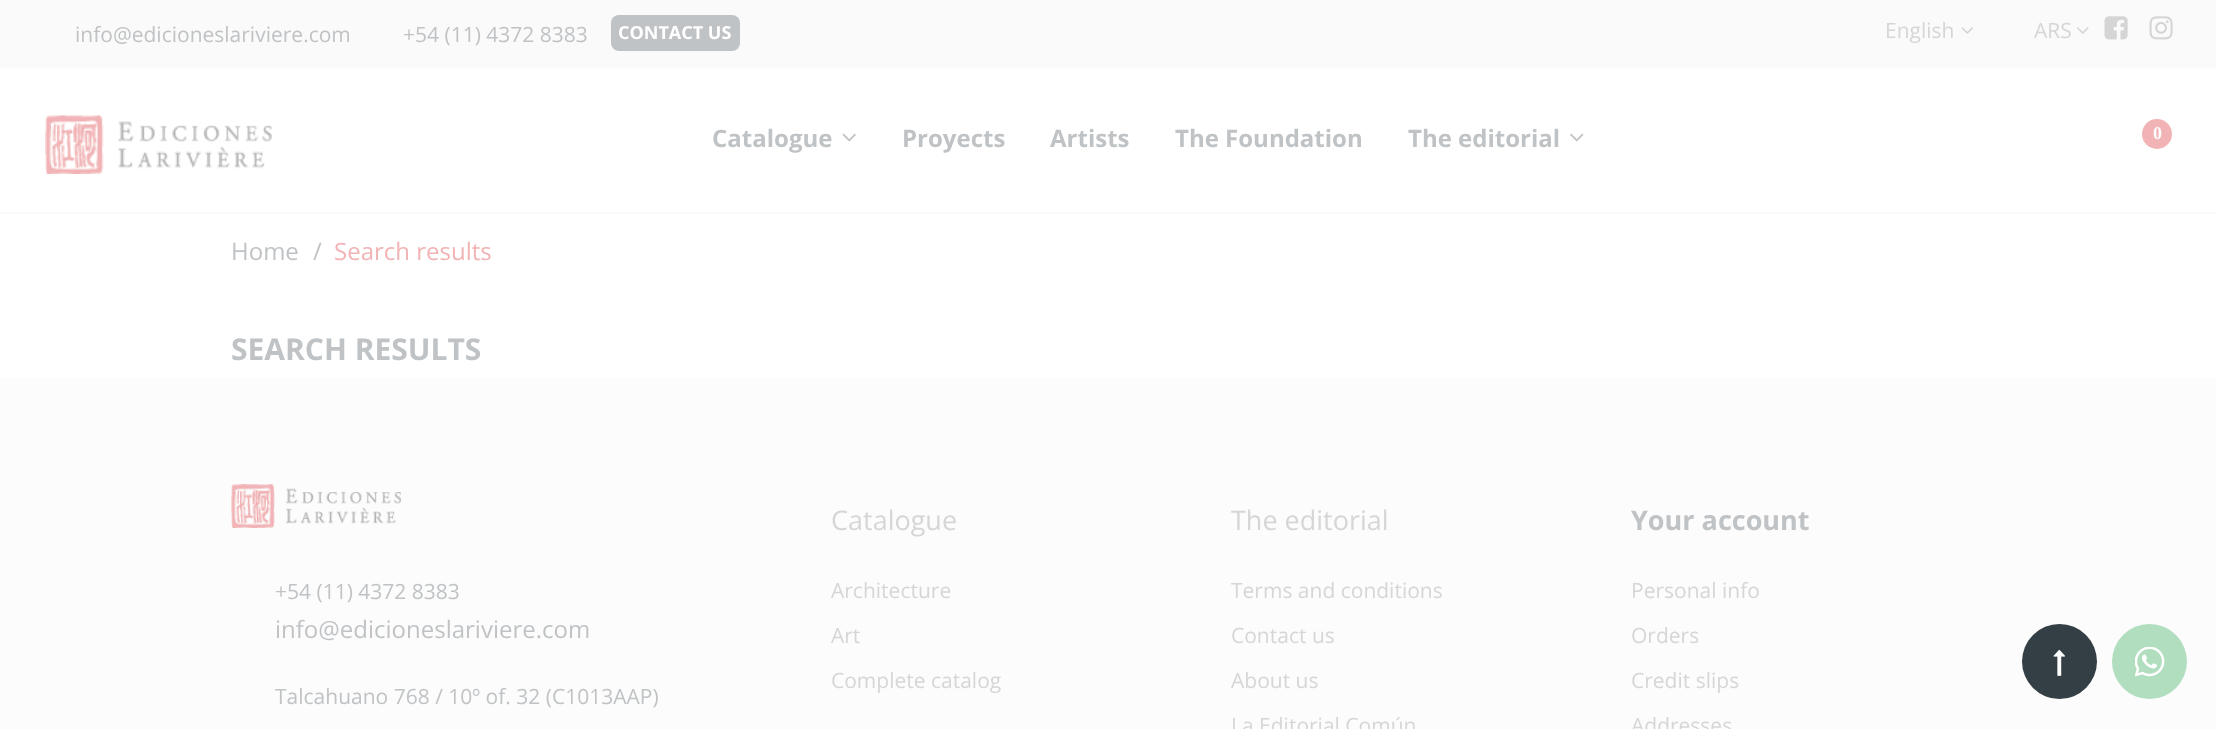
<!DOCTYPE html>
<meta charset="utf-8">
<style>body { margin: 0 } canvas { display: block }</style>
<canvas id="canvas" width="2216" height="729"></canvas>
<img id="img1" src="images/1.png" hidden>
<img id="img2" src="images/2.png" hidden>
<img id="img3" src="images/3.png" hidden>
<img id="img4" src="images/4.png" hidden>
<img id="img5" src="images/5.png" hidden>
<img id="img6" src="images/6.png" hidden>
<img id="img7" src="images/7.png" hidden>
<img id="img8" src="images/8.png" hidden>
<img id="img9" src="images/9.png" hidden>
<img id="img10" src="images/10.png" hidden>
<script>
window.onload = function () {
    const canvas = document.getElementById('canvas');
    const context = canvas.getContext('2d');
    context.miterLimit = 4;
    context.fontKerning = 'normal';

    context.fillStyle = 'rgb(255, 255, 255)';
    context.fillRect(0, 0, 2216, 729);
    context.fillStyle = 'rgb(250, 250, 250)';
    context.fillRect(0, 0, 2216, 66);
    context.fillStyle = 'rgb(251, 251, 251)';
    context.fillRect(0, 66, 2216, 3);
    context.fillStyle = 'rgb(192, 195, 197)';
    context.beginPath();
    context.roundRect(611, 15, 129, 36, 8);
    context.fill();
    context.drawImage(document.getElementById('img1'), 1961, 27, 12, 7);
    context.drawImage(document.getElementById('img2'), 2077, 27, 12, 7);
    context.drawImage(document.getElementById('img3'), 2104, 16, 24, 24);
    context.drawImage(document.getElementById('img4'), 2149, 16, 24, 24);
    context.fillStyle = 'rgb(250, 250, 250)';
    context.fillRect(0, 212, 2216, 2);
    context.drawImage(document.getElementById('img5'), 45, 115, 227, 59);
    context.drawImage(document.getElementById('img6'), 842, 133, 14, 9);
    context.drawImage(document.getElementById('img7'), 1570, 133, 14, 9);
    context.fillStyle = 'rgb(241, 179, 181)';
    context.beginPath();
    context.arc(2157, 134, 15, 0, 2 * Math.PI);
    context.fill();
    context.fillStyle = 'rgb(252, 252, 252)';
    context.fillRect(0, 378, 2216, 351);
    context.drawImage(document.getElementById('img8'), 231, 484, 170, 44);
    context.fillStyle = 'rgb(52, 62, 69)';
    context.beginPath();
    context.arc(2059.5, 661.5, 37.5, 0, 2 * Math.PI);
    context.fill();
    context.drawImage(document.getElementById('img9'), 2053, 649, 12, 27);
    context.fillStyle = 'rgb(176, 222, 191)';
    context.beginPath();
    context.arc(2149.5, 661.5, 37.5, 0, 2 * Math.PI);
    context.fill();
    context.drawImage(document.getElementById('img10'), 2135, 647, 30, 30);
    context.font = '21px Open Sans';
    context.fillStyle = 'rgb(192, 195, 197)';
    context.fillText('info@edicioneslariviere.com', 75, 42);
    context.fillText('+54 (11) 4372 8383', 403, 42);
    context.font = 'bold 18px Open Sans';
    context.fillStyle = 'rgb(255, 255, 255)';
    context.fillText('CONTACT US', 618, 39);
    context.font = '21px Open Sans';
    context.fillStyle = 'rgb(214, 214, 214)';
    context.fillText('English', 1885, 38);
    context.fillText('ARS', 2034, 38);
    context.font = 'bold 24px Open Sans';
    context.fillStyle = 'rgb(192, 195, 197)';
    context.fillText('Catalogue', 712, 147);
    context.fillText('Proyects', 902, 147);
    context.fillText('Artists', 1050, 147);
    context.fillText('The Foundation', 1175, 147);
    context.fillText('The editorial', 1408, 147);
    context.font = 'bold 18px Liberation Serif';
    context.fillStyle = 'rgb(255, 255, 255)';
    context.fillText('0', 2153, 139);
    context.font = '24px Open Sans';
    context.fillStyle = 'rgb(192, 195, 197)';
    context.fillText('Home', 231, 260);
    context.fillText('/', 313, 260);
    context.fillStyle = 'rgb(241, 179, 181)';
    context.fillText('Search results', 334, 260);
    context.font = 'bold 30px Open Sans';
    context.fillStyle = 'rgb(192, 195, 197)';
    context.fillText('SEARCH RESULTS', 231, 360);
    context.font = '21px Open Sans';
    context.fillText('+54 (11) 4372 8383', 275, 599);
    context.font = '24px Open Sans';
    context.fillText('info@edicioneslariviere.com', 275, 638);
    context.font = '21px Open Sans';
    context.fillText('Talcahuano 768 / 10º of. 32 (C1013AAP)', 275, 704);
    context.font = '27px Open Sans';
    context.fillStyle = 'rgb(214, 214, 214)';
    context.fillText('Catalogue', 831, 530);
    context.font = '21px Open Sans';
    context.fillText('Architecture', 831, 598);
    context.fillText('Art', 831, 643);
    context.fillText('Complete catalog', 831, 688);
    context.font = '27px Open Sans';
    context.fillText('The editorial', 1231, 530);
    context.font = '21px Open Sans';
    context.fillText('Terms and conditions', 1231, 598);
    context.fillText('Contact us', 1231, 643);
    context.fillText('About us', 1231, 688);
    context.fillText('La Editorial Común', 1231, 733);
    context.font = 'bold 27px Open Sans';
    context.fillStyle = 'rgb(192, 195, 197)';
    context.fillText('Your account', 1631, 530);
    context.font = '21px Open Sans';
    context.fillStyle = 'rgb(214, 214, 214)';
    context.fillText('Personal info', 1631, 598);
    context.fillText('Orders', 1631, 643);
    context.fillText('Credit slips', 1631, 688);
    context.fillText('Addresses', 1631, 733);
};
</script>
